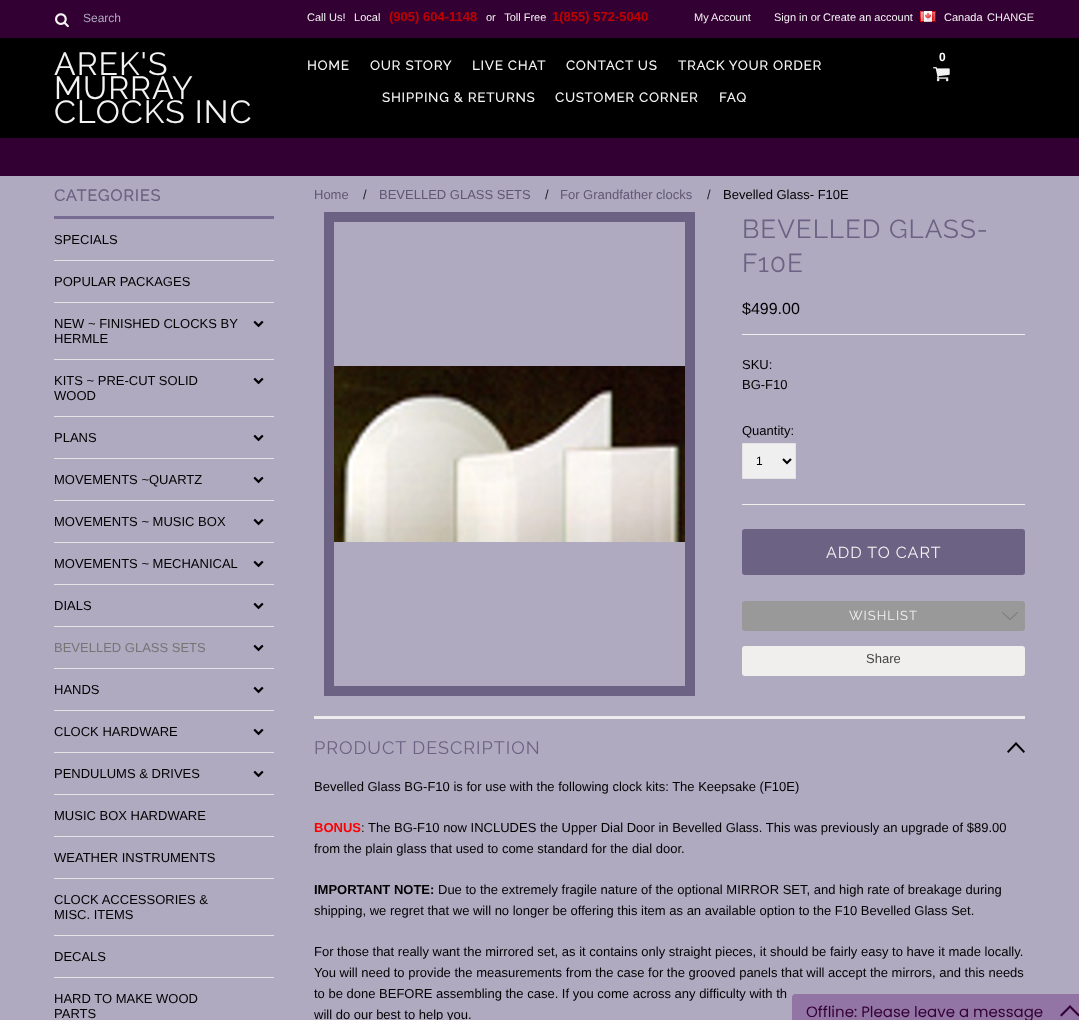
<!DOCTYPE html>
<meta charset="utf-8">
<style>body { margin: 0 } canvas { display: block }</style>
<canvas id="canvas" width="1079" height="1020"></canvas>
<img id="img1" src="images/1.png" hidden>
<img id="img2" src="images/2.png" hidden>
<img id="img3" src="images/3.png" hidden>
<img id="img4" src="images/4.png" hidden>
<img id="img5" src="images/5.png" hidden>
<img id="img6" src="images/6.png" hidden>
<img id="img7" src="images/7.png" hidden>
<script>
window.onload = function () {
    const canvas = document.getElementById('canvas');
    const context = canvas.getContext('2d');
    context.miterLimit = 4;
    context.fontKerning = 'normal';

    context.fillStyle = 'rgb(176, 170, 192)';
    context.fillRect(0, 0, 1079, 1020);
    context.fillStyle = 'rgb(51, 0, 51)';
    context.fillRect(0, 0, 1079, 176);
    context.drawImage(document.getElementById('img1'), 55, 13, 14, 15);
    context.drawImage(document.getElementById('img2'), 920, 11, 16, 11);
    context.fillStyle = 'rgb(0, 0, 0)';
    context.fillRect(0, 38, 1079, 100);
    context.drawImage(document.getElementById('img3'), 933, 67, 17, 15);
    context.fillStyle = 'rgb(119, 108, 147)';
    context.fillRect(54, 216, 220, 3);
    context.fillStyle = 'rgb(228, 228, 228)';
    context.fillRect(54, 260, 220, 1);
    context.fillRect(54, 302, 220, 1);
    context.fillRect(54, 359, 220, 1);
    context.drawImage(document.getElementById('img4'), 253, 320, 11, 8);
    context.fillRect(54, 416, 220, 1);
    context.drawImage(document.getElementById('img4'), 253, 377, 11, 8);
    context.fillRect(54, 458, 220, 1);
    context.drawImage(document.getElementById('img4'), 253, 434, 11, 8);
    context.fillRect(54, 500, 220, 1);
    context.drawImage(document.getElementById('img4'), 253, 476, 11, 8);
    context.fillRect(54, 542, 220, 1);
    context.drawImage(document.getElementById('img4'), 253, 518, 11, 8);
    context.fillRect(54, 584, 220, 1);
    context.drawImage(document.getElementById('img4'), 253, 560, 11, 8);
    context.fillRect(54, 626, 220, 1);
    context.drawImage(document.getElementById('img4'), 253, 602, 11, 8);
    context.fillRect(54, 668, 220, 1);
    context.drawImage(document.getElementById('img4'), 253, 644, 11, 8);
    context.fillRect(54, 710, 220, 1);
    context.drawImage(document.getElementById('img4'), 253, 686, 11, 8);
    context.fillRect(54, 752, 220, 1);
    context.drawImage(document.getElementById('img4'), 253, 728, 11, 8);
    context.fillRect(54, 794, 220, 1);
    context.drawImage(document.getElementById('img4'), 253, 770, 11, 8);
    context.fillRect(54, 836, 220, 1);
    context.fillRect(54, 878, 220, 1);
    context.fillRect(54, 935, 220, 1);
    context.fillRect(54, 977, 220, 1);
    context.strokeStyle = 'rgb(107, 98, 132)';
    context.lineWidth = 10;
    context.strokeRect(329, 217, 361, 474);
    context.drawImage(document.getElementById('img5'), 334, 366, 351, 176);
    context.fillStyle = 'rgb(240, 239, 238)';
    context.fillRect(742, 334, 283, 1);
    context.fillRect(742, 504, 283, 1);
    context.fillStyle = 'rgb(239, 239, 239)';
    context.beginPath();
    context.rect(742.5, 443.5, 53, 35);
    context.fill();
    context.strokeStyle = 'rgb(228, 228, 228)';
    context.lineWidth = 1;
    context.stroke();
    context.beginPath();
    context.moveTo(783, 459);
    context.lineTo(787, 463);
    context.lineTo(791, 459);
    context.strokeStyle = 'rgb(0, 0, 0)';
    context.lineWidth = 2;
    context.stroke();
    context.fillStyle = 'rgb(107, 98, 132)';
    context.beginPath();
    context.roundRect(743, 530, 281, 44, 2);
    context.fill();
    context.strokeStyle = 'rgb(107, 98, 132)';
    context.stroke();
    context.fillStyle = 'rgb(153, 153, 153)';
    context.beginPath();
    context.roundRect(743, 602, 281, 28, 2);
    context.fill();
    context.strokeStyle = 'rgb(153, 153, 153)';
    context.stroke();
    context.drawImage(document.getElementById('img6'), 1002, 612, 16, 8);
    context.fillStyle = 'rgb(240, 239, 238)';
    context.beginPath();
    context.roundRect(742, 646, 283, 30, 3);
    context.fill();
    context.fillStyle = 'rgb(237, 237, 237)';
    context.fillRect(314, 716, 711, 3);
    context.drawImage(document.getElementById('img7'), 1007, 742, 18, 11);
    context.fillStyle = 'rgb(147, 117, 165)';
    context.beginPath();
    context.moveTo(795, 993);
    context.lineTo(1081, 993);
    context.bezierCurveTo(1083, 993, 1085, 995, 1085, 997);
    context.lineTo(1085, 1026);
    context.lineTo(791, 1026);
    context.lineTo(791, 997);
    context.bezierCurveTo(791, 995, 793, 993, 795, 993);
    context.closePath();
    context.fill();
    context.strokeStyle = 'rgb(176, 170, 192)';
    context.stroke();
    context.fillStyle = 'rgb(51, 0, 51)';
    context.beginPath();
    context.moveTo(1070, 1005);
    context.lineTo(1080, 1015);
    context.lineTo(1078.5, 1016.5);
    context.lineTo(1070, 1008);
    context.lineTo(1061.5, 1016.5);
    context.lineTo(1060, 1015);
    context.closePath();
    context.fill();
    context.font = '12px Liberation Sans';
    context.fillStyle = 'rgb(176, 170, 192)';
    context.fillText('Search', 83, 22);
    context.font = '11px Liberation Sans';
    context.fillStyle = 'rgb(243, 243, 243)';
    context.fillText('Call Us!  Local', 307, 21);
    context.font = 'bold 13px Liberation Sans';
    context.fillStyle = 'rgb(192, 0, 0)';
    context.fillText('(905) 604-1148', 389, 21);
    context.font = '11px Liberation Sans';
    context.fillStyle = 'rgb(243, 243, 243)';
    context.fillText('or  Toll Free', 486, 21);
    context.font = 'bold 13px Liberation Sans';
    context.fillStyle = 'rgb(192, 0, 0)';
    context.fillText('1(855) 572-5040', 552, 21);
    context.font = '11px Liberation Sans';
    context.fillStyle = 'rgb(243, 243, 243)';
    context.fillText('My Account', 694, 21);
    context.fillText('Sign in or', 774, 21);
    context.fillText('Create an account', 823, 21);
    context.fillText('Canada', 944, 21);
    context.fillText('CHANGE', 987, 21);
    context.letterSpacing = '1px';
    context.font = '100 32px Raleway';
    context.fillText('AREK\'S', 54, 75);
    context.fillText('MURRAY', 54, 99);
    context.fillText('CLOCKS INC', 54, 123);
    context.letterSpacing = '0px';
    context.font = 'bold 12px Liberation Sans';
    context.fillStyle = 'rgb(255, 255, 255)';
    context.fillText('0', 939, 61);
    context.letterSpacing = '1px';
    context.font = 'bold 13px Raleway';
    context.fillStyle = 'rgb(243, 243, 243)';
    context.fillText('HOME', 307, 70);
    context.fillText('OUR STORY', 370, 70);
    context.fillText('LIVE CHAT', 472, 70);
    context.fillText('CONTACT US', 566, 70);
    context.fillText('TRACK YOUR ORDER', 678, 70);
    context.fillText('SHIPPING & RETURNS', 382, 102);
    context.fillText('CUSTOMER CORNER', 555, 102);
    context.fillText('FAQ', 719, 102);
    context.font = 'bold 16px Raleway';
    context.fillStyle = 'rgb(107, 98, 132)';
    context.fillText('CATEGORIES', 54, 201);
    context.letterSpacing = '0px';
    context.font = '13px Liberation Sans';
    context.fillStyle = 'rgb(0, 0, 0)';
    context.fillText('SPECIALS', 54, 244);
    context.fillText('POPULAR PACKAGES', 54, 286);
    context.fillText('NEW ~ FINISHED CLOCKS BY', 54, 328);
    context.fillText('HERMLE', 54, 343);
    context.fillText('KITS ~ PRE-CUT SOLID', 54, 385);
    context.fillText('WOOD', 54, 400);
    context.fillText('PLANS', 54, 442);
    context.fillText('MOVEMENTS ~QUARTZ', 54, 484);
    context.fillText('MOVEMENTS ~ MUSIC BOX', 54, 526);
    context.fillText('MOVEMENTS ~ MECHANICAL', 54, 568);
    context.fillText('DIALS', 54, 610);
    context.fillStyle = 'rgb(117, 117, 117)';
    context.fillText('BEVELLED GLASS SETS', 54, 652);
    context.fillStyle = 'rgb(0, 0, 0)';
    context.fillText('HANDS', 54, 694);
    context.fillText('CLOCK HARDWARE', 54, 736);
    context.fillText('PENDULUMS & DRIVES', 54, 778);
    context.fillText('MUSIC BOX HARDWARE', 54, 820);
    context.fillText('WEATHER INSTRUMENTS', 54, 862);
    context.fillText('CLOCK ACCESSORIES &', 54, 904);
    context.fillText('MISC. ITEMS', 54, 919);
    context.fillText('DECALS', 54, 961);
    context.fillText('HARD TO MAKE WOOD', 54, 1003);
    context.fillText('PARTS', 54, 1018);
    context.fillStyle = 'rgb(95, 87, 117)';
    context.fillText('Home', 314, 199);
    context.fillStyle = 'rgb(32, 32, 32)';
    context.fillText('/', 363, 199);
    context.fillStyle = 'rgb(95, 87, 117)';
    context.fillText('BEVELLED GLASS SETS', 379, 199);
    context.fillStyle = 'rgb(32, 32, 32)';
    context.fillText('/', 545, 199);
    context.fillStyle = 'rgb(95, 87, 117)';
    context.fillText('For Grandfather clocks', 560, 199);
    context.fillStyle = 'rgb(32, 32, 32)';
    context.fillText('/', 707, 199);
    context.fillStyle = 'rgb(0, 0, 0)';
    context.fillText('Bevelled Glass- F10E', 723, 199);
    context.letterSpacing = '1px';
    context.font = '100 26px Raleway';
    context.fillStyle = 'rgb(107, 98, 132)';
    context.fillText('BEVELLED GLASS-', 742, 238);
    context.fillText('F10E', 742, 272);
    context.letterSpacing = '0px';
    context.font = '16px Liberation Sans';
    context.fillStyle = 'rgb(0, 0, 0)';
    context.fillText('$499.00', 742, 314);
    context.font = '13px Liberation Sans';
    context.fillText('SKU:', 742, 369);
    context.fillText('BG-F10', 742, 389);
    context.fillText('Quantity:', 742, 435);
    context.font = '12px Liberation Sans';
    context.fillText('1', 756, 465);
    context.letterSpacing = '1px';
    context.font = '100 16px Raleway';
    context.fillStyle = 'rgb(243, 243, 243)';
    context.fillText('ADD TO CART', 826, 558);
    context.font = '100 13px Raleway';
    context.fillText('WISHLIST', 849, 620);
    context.letterSpacing = '0px';
    context.font = '13px Liberation Sans';
    context.fillStyle = 'rgb(69, 69, 69)';
    context.fillText('Share', 866, 663);
    context.letterSpacing = '1px';
    context.font = '100 18px Raleway';
    context.fillStyle = 'rgb(107, 98, 132)';
    context.fillText('PRODUCT DESCRIPTION', 314, 754);
    context.letterSpacing = '0px';
    context.font = '13px Liberation Sans';
    context.fillStyle = 'rgb(0, 0, 0)';
    context.fillText('Bevelled Glass BG-F10 is for use with the following clock kits: The Keepsake (F10E)', 314, 791);
    context.font = 'bold 13px Liberation Sans';
    context.fillStyle = 'rgb(255, 0, 0)';
    context.fillText('BONUS', 314, 832);
    context.font = '13px Liberation Sans';
    context.fillStyle = 'rgb(0, 0, 0)';
    context.fillText(': The BG-F10 now INCLUDES the Upper Dial Door in Bevelled Glass. This was previously an upgrade of $89.00', 361, 832);
    context.fillText('from the plain glass that used to come standard for the dial door.', 314, 853);
    context.font = 'bold 13px Liberation Sans';
    context.fillText('IMPORTANT NOTE:', 314, 894);
    context.font = '13px Liberation Sans';
    context.fillText('Due to the extremely fragile nature of the optional MIRROR SET, and high rate of breakage during', 438, 894);
    context.fillText('shipping, we regret that we will no longer be offering this item as an available option to the F10 Bevelled Glass Set.', 314, 915);
    context.fillText('For those that really want the mirrored set, as it contains only straight pieces, it should be fairly easy to have it made locally.', 314, 956);
    context.fillText('You will need to provide the measurements from the case for the grooved panels that will accept the mirrors, and this needs', 314, 977);
    context.fillText('to be done BEFORE assembling the case. If you come across any difficulty with th', 314, 998);
    context.fillText('will do our best to help you.', 314, 1019);
    context.font = '15px Poppins';
    context.fillStyle = 'rgb(51, 0, 51)';
    context.fillText('Offline: Please leave a message', 806, 1017);
};
</script>
